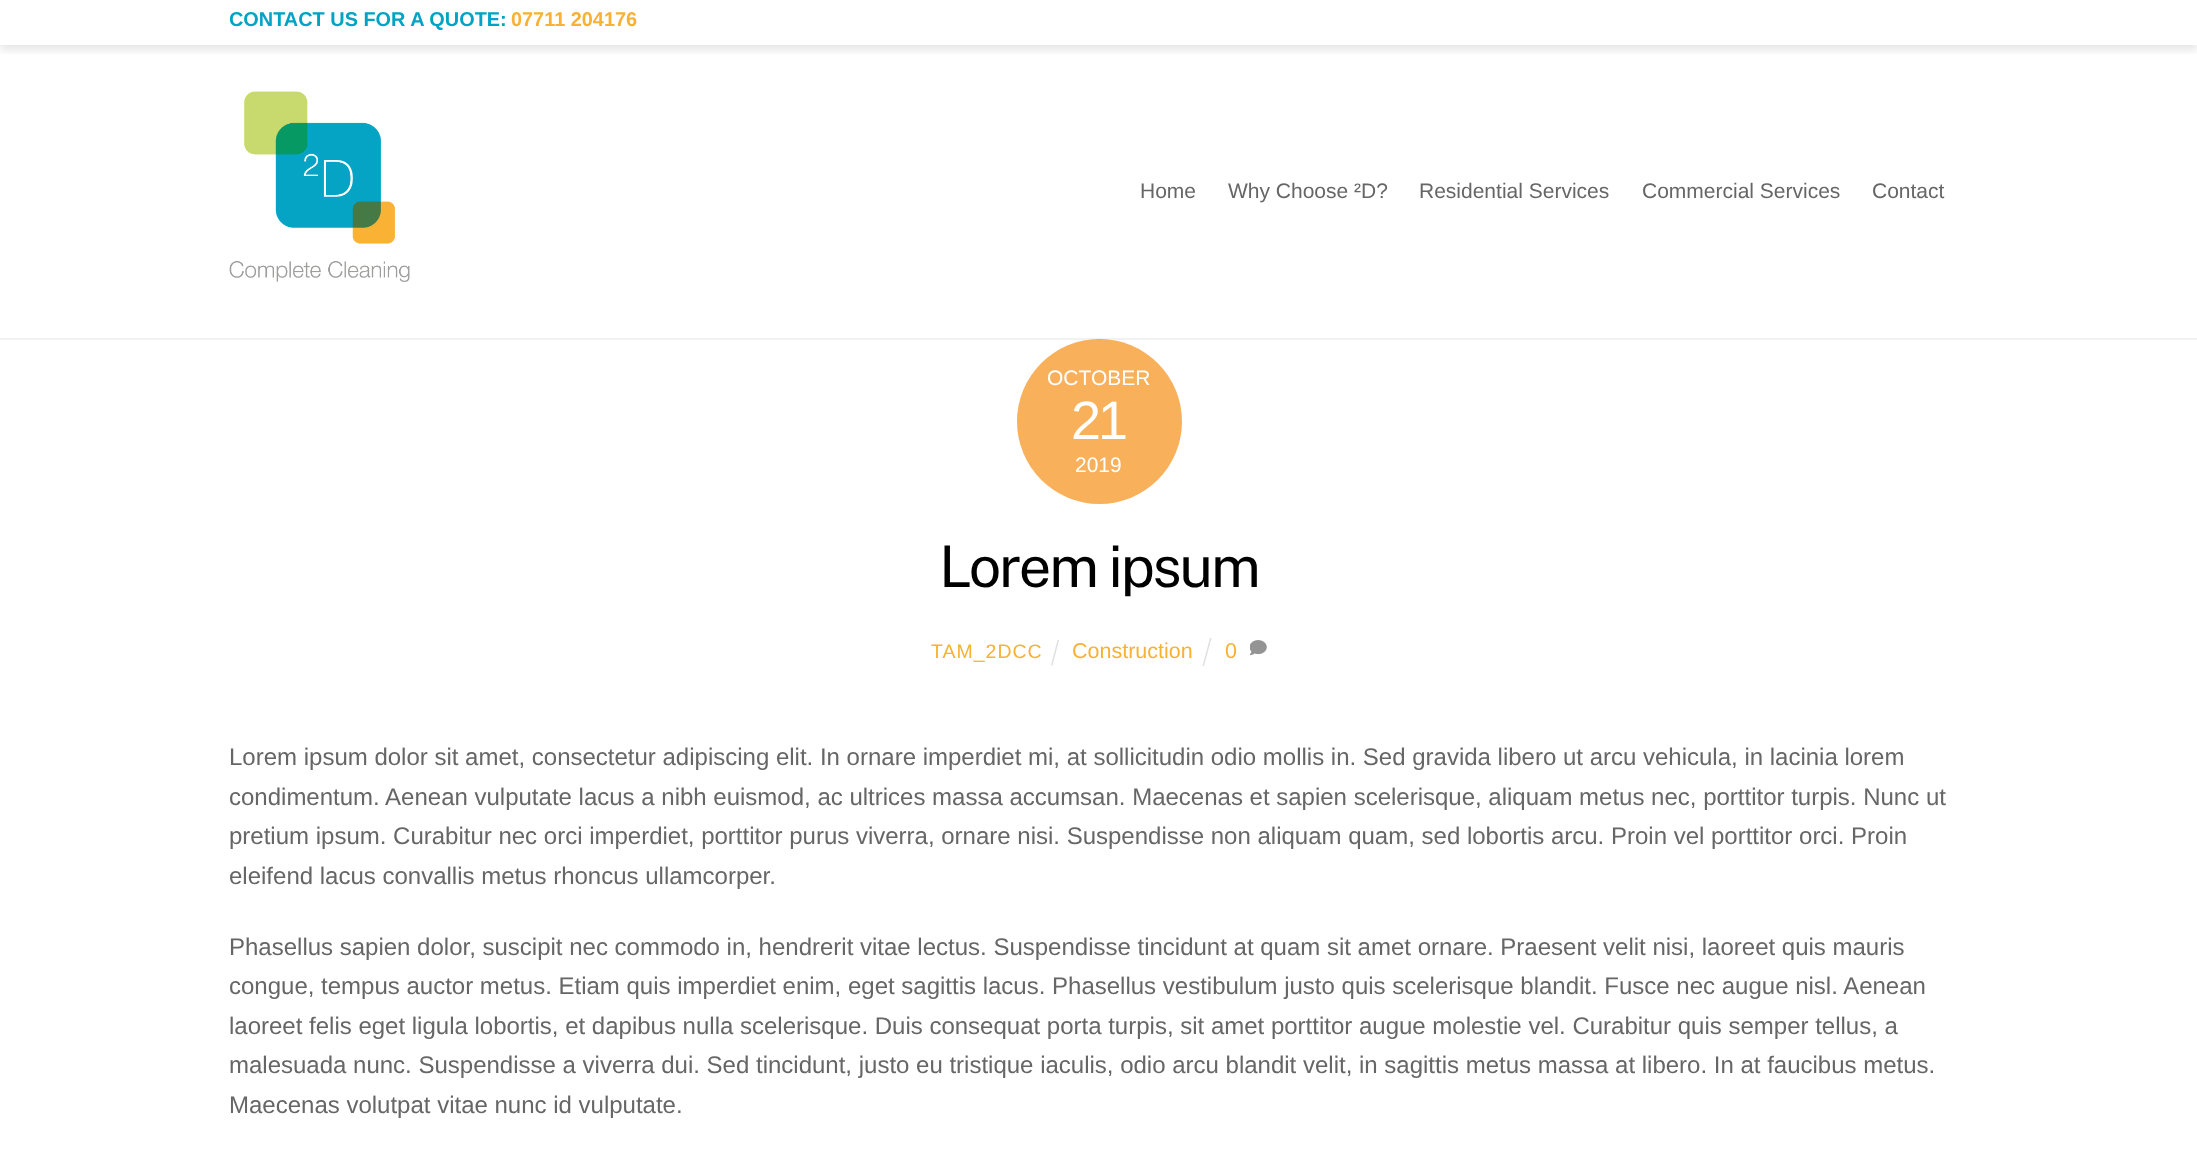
<!DOCTYPE html>
<meta charset="utf-8">
<style>body { margin: 0 } canvas { display: block }</style>
<canvas id="canvas" width="2197" height="1160"></canvas>
<img id="img1" src="images/1.png" hidden>
<img id="img2" src="images/2.png" hidden>
<script>
window.onload = function () {
    const canvas = document.getElementById('canvas');
    const context = canvas.getContext('2d');
    context.miterLimit = 4;
    context.fontKerning = 'normal';

    context.fillStyle = 'rgb(255, 255, 255)';
    context.fillRect(0, 0, 2197, 1160);
    context.fillStyle = 'rgb(248, 176, 91)';
    context.beginPath();
    context.arc(1099.5, 421.5, 82.5, 0, 2 * Math.PI);
    context.fill();
    context.fillStyle = 'rgba(0, 0, 0, 0.05)';
    context.fillRect(0, 338, 2197, 2);
    context.save();
    context.beginPath();
    context.rect(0, 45, 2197, 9);
    context.clip();
    context.fillStyle = 'rgba(0, 0, 0, 0.1)';
    context.filter = 'blur(5px)';
    context.beginPath();
    context.rect(0, 5, 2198, 45);
    context.fill();
    context.filter = 'none';
    context.restore();
    context.drawImage(document.getElementById('img1'), 229, 91, 181, 191);
    context.fillStyle = 'rgb(224, 224, 224)';
    context.beginPath();
    context.moveTo(1057.5, 640);
    context.lineTo(1059, 640);
    context.lineTo(1052.5, 665.5);
    context.lineTo(1051, 665.5);
    context.closePath();
    context.fill();
    context.beginPath();
    context.moveTo(1210, 638);
    context.lineTo(1211.5, 638);
    context.lineTo(1204, 666);
    context.lineTo(1202.5, 666);
    context.closePath();
    context.fill();
    context.drawImage(document.getElementById('img2'), 1250, 640, 17, 16);
    context.save();
    context.beginPath();
    context.rect(230, 0, 1740, 39);
    context.clip();
    context.font = 'bold 19.9px Liberation Sans';
    context.fillStyle = 'rgb(0, 163, 195)';
    context.fillText('CONTACT US FOR A QUOTE:', 229, 26);
    context.restore();
    context.font = 'bold 19.9px Liberation Sans';
    context.fillStyle = 'rgb(248, 177, 51)';
    context.fillText('07711 204176', 511, 26);
    context.font = '21px Liberation Sans';
    context.fillStyle = 'rgb(102, 102, 102)';
    context.fillText('Home', 1140, 198);
    context.fillText('Why Choose ²D?', 1228, 198);
    context.fillText('Residential Services', 1419, 198);
    context.fillText('Commercial Services', 1642, 198);
    context.fillText('Contact', 1872, 198);
    context.fillStyle = 'rgb(255, 255, 255)';
    context.fillText('OCTOBER', 1047, 385);
    context.letterSpacing = '-3px';
    context.font = '54px Liberation Sans';
    context.fillText('21', 1071, 439);
    context.letterSpacing = '0px';
    context.font = '21px Liberation Sans';
    context.fillText('2019', 1075, 472);
    context.letterSpacing = '-2.25px';
    context.font = '57.5px Public Sans';
    context.fillStyle = 'rgb(0, 0, 0)';
    context.fillText('Lorem ipsum', 939, 587);
    context.letterSpacing = '1px';
    context.font = '19.5px Liberation Sans';
    context.fillStyle = 'rgb(248, 177, 51)';
    context.fillText('TAM_2DCC', 931, 658);
    context.letterSpacing = '0px';
    context.font = '21.5px Liberation Sans';
    context.fillText('Construction', 1072, 658);
    context.fillText('0', 1225, 658);
    context.font = '24px Liberation Sans';
    context.fillStyle = 'rgb(102, 102, 102)';
    context.fillText('Lorem ipsum dolor sit amet, consectetur adipiscing elit. In ornare imperdiet mi, at sollicitudin odio mollis in. Sed gravida libero ut arcu vehicula, in lacinia lorem', 229, 765);
    context.fillText('condimentum. Aenean vulputate lacus a nibh euismod, ac ultrices massa accumsan. Maecenas et sapien scelerisque, aliquam metus nec, porttitor turpis. Nunc ut', 229, 805);
    context.fillText('pretium ipsum. Curabitur nec orci imperdiet, porttitor purus viverra, ornare nisi. Suspendisse non aliquam quam, sed lobortis arcu. Proin vel porttitor orci. Proin', 229, 844);
    context.fillText('eleifend lacus convallis metus rhoncus ullamcorper.', 229, 884);
    context.fillText('Phasellus sapien dolor, suscipit nec commodo in, hendrerit vitae lectus. Suspendisse tincidunt at quam sit amet ornare. Praesent velit nisi, laoreet quis mauris', 229, 955);
    context.fillText('congue, tempus auctor metus. Etiam quis imperdiet enim, eget sagittis lacus. Phasellus vestibulum justo quis scelerisque blandit. Fusce nec augue nisl. Aenean', 229, 994);
    context.fillText('laoreet felis eget ligula lobortis, et dapibus nulla scelerisque. Duis consequat porta turpis, sit amet porttitor augue molestie vel. Curabitur quis semper tellus, a', 229, 1034);
    context.fillText('malesuada nunc. Suspendisse a viverra dui. Sed tincidunt, justo eu tristique iaculis, odio arcu blandit velit, in sagittis metus massa at libero. In at faucibus metus.', 229, 1073);
    context.fillText('Maecenas volutpat vitae nunc id vulputate.', 229, 1113);
};
</script>
